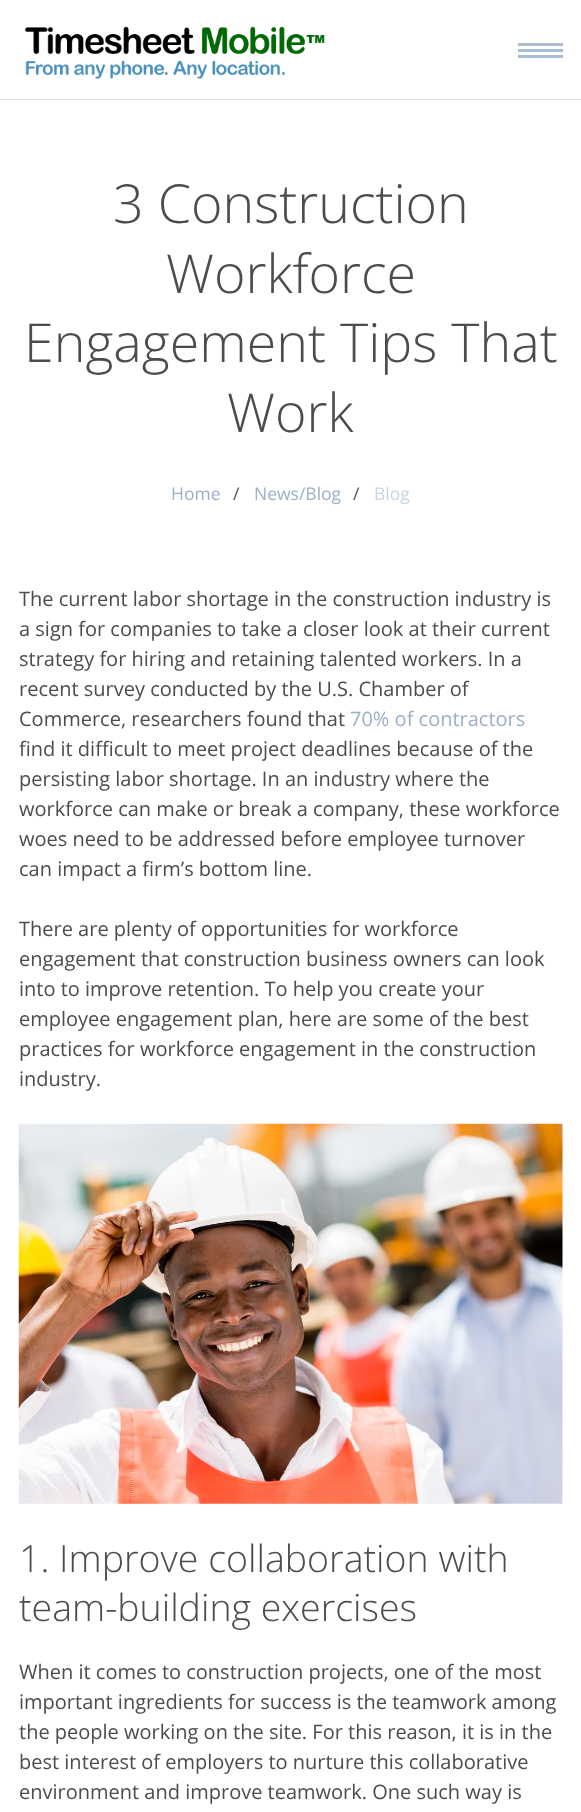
<!DOCTYPE html>
<meta charset="utf-8">
<style>body { margin: 0 } canvas { display: block }</style>
<canvas id="canvas" width="581" height="1812"></canvas>
<img id="img1" src="images/1.png" hidden>
<img id="img2" src="images/2.png" hidden>
<script>
window.onload = function () {
    const canvas = document.getElementById('canvas');
    const context = canvas.getContext('2d');
    context.miterLimit = 4;
    context.fontKerning = 'normal';

    context.fillStyle = 'rgb(255, 255, 255)';
    context.fillRect(0, 0, 581, 1812);
    context.fillStyle = 'rgb(220, 228, 236)';
    context.fillRect(0, 99, 581, 1);
    context.drawImage(document.getElementById('img1'), 25, 26, 300, 53);
    context.fillStyle = 'rgb(171, 189, 209)';
    context.fillRect(518, 49, 45, 3);
    context.fillRect(518, 43, 45, 3);
    context.fillRect(518, 55, 45, 3);
    context.drawImage(document.getElementById('img2'), 18, 1123, 545, 381);
    context.font = '300 53.75px Open Sans';
    context.fillStyle = 'rgb(76, 76, 76)';
    context.fillText('3 Construction', 113, 223);
    context.fillText('Workforce', 166, 293);
    context.fillText('Engagement Tips That', 24, 362);
    context.fillText('Work', 227, 432);
    context.font = '17.5px Open Sans';
    context.fillStyle = 'rgb(155, 176, 200)';
    context.fillText('Home', 171, 500);
    context.fillStyle = 'rgb(76, 76, 76)';
    context.fillText('/', 233, 500);
    context.fillStyle = 'rgb(155, 176, 200)';
    context.fillText('News/Blog', 254, 500);
    context.fillStyle = 'rgb(76, 76, 76)';
    context.fillText('/', 353, 500);
    context.fillStyle = 'rgb(200, 212, 225)';
    context.fillText('Blog', 374, 500);
    context.font = '20px Open Sans';
    context.fillStyle = 'rgb(76, 76, 76)';
    context.fillText('The current labor shortage in the construction industry is', 19, 606);
    context.fillText('a sign for companies to take a closer look at their current', 19, 636);
    context.fillText('strategy for hiring and retaining talented workers. In a', 19, 666);
    context.fillText('recent survey conducted by the U.S. Chamber of', 19, 696);
    context.fillText('Commerce, researchers found that', 19, 726);
    context.fillStyle = 'rgb(155, 176, 200)';
    context.fillText('70% of contractors', 350, 726);
    context.fillStyle = 'rgb(76, 76, 76)';
    context.fillText('find it difficult to meet project deadlines because of the', 19, 756);
    context.fillText('persisting labor shortage. In an industry where the', 19, 786);
    context.fillText('workforce can make or break a company, these workforce', 19, 816);
    context.fillText('woes need to be addressed before employee turnover', 19, 846);
    context.fillText('can impact a firm’s bottom line.', 19, 876);
    context.fillText('There are plenty of opportunities for workforce', 19, 936);
    context.fillText('engagement that construction business owners can look', 19, 966);
    context.fillText('into to improve retention. To help you create your', 19, 996);
    context.fillText('employee engagement plan, here are some of the best', 19, 1026);
    context.fillText('practices for workforce engagement in the construction', 19, 1056);
    context.fillText('industry.', 19, 1086);
    context.font = '300 37.5px Open Sans';
    context.fillText('1. Improve collaboration with', 19, 1572);
    context.fillText('team-building exercises', 19, 1621);
    context.font = '20px Open Sans';
    context.fillText('When it comes to construction projects, one of the most', 19, 1679);
    context.fillText('important ingredients for success is the teamwork among', 19, 1709);
    context.fillText('the people working on the site. For this reason, it is in the', 19, 1739);
    context.fillText('best interest of employers to nurture this collaborative', 19, 1769);
    context.fillText('environment and improve teamwork. One such way is', 19, 1799);
};
</script>
